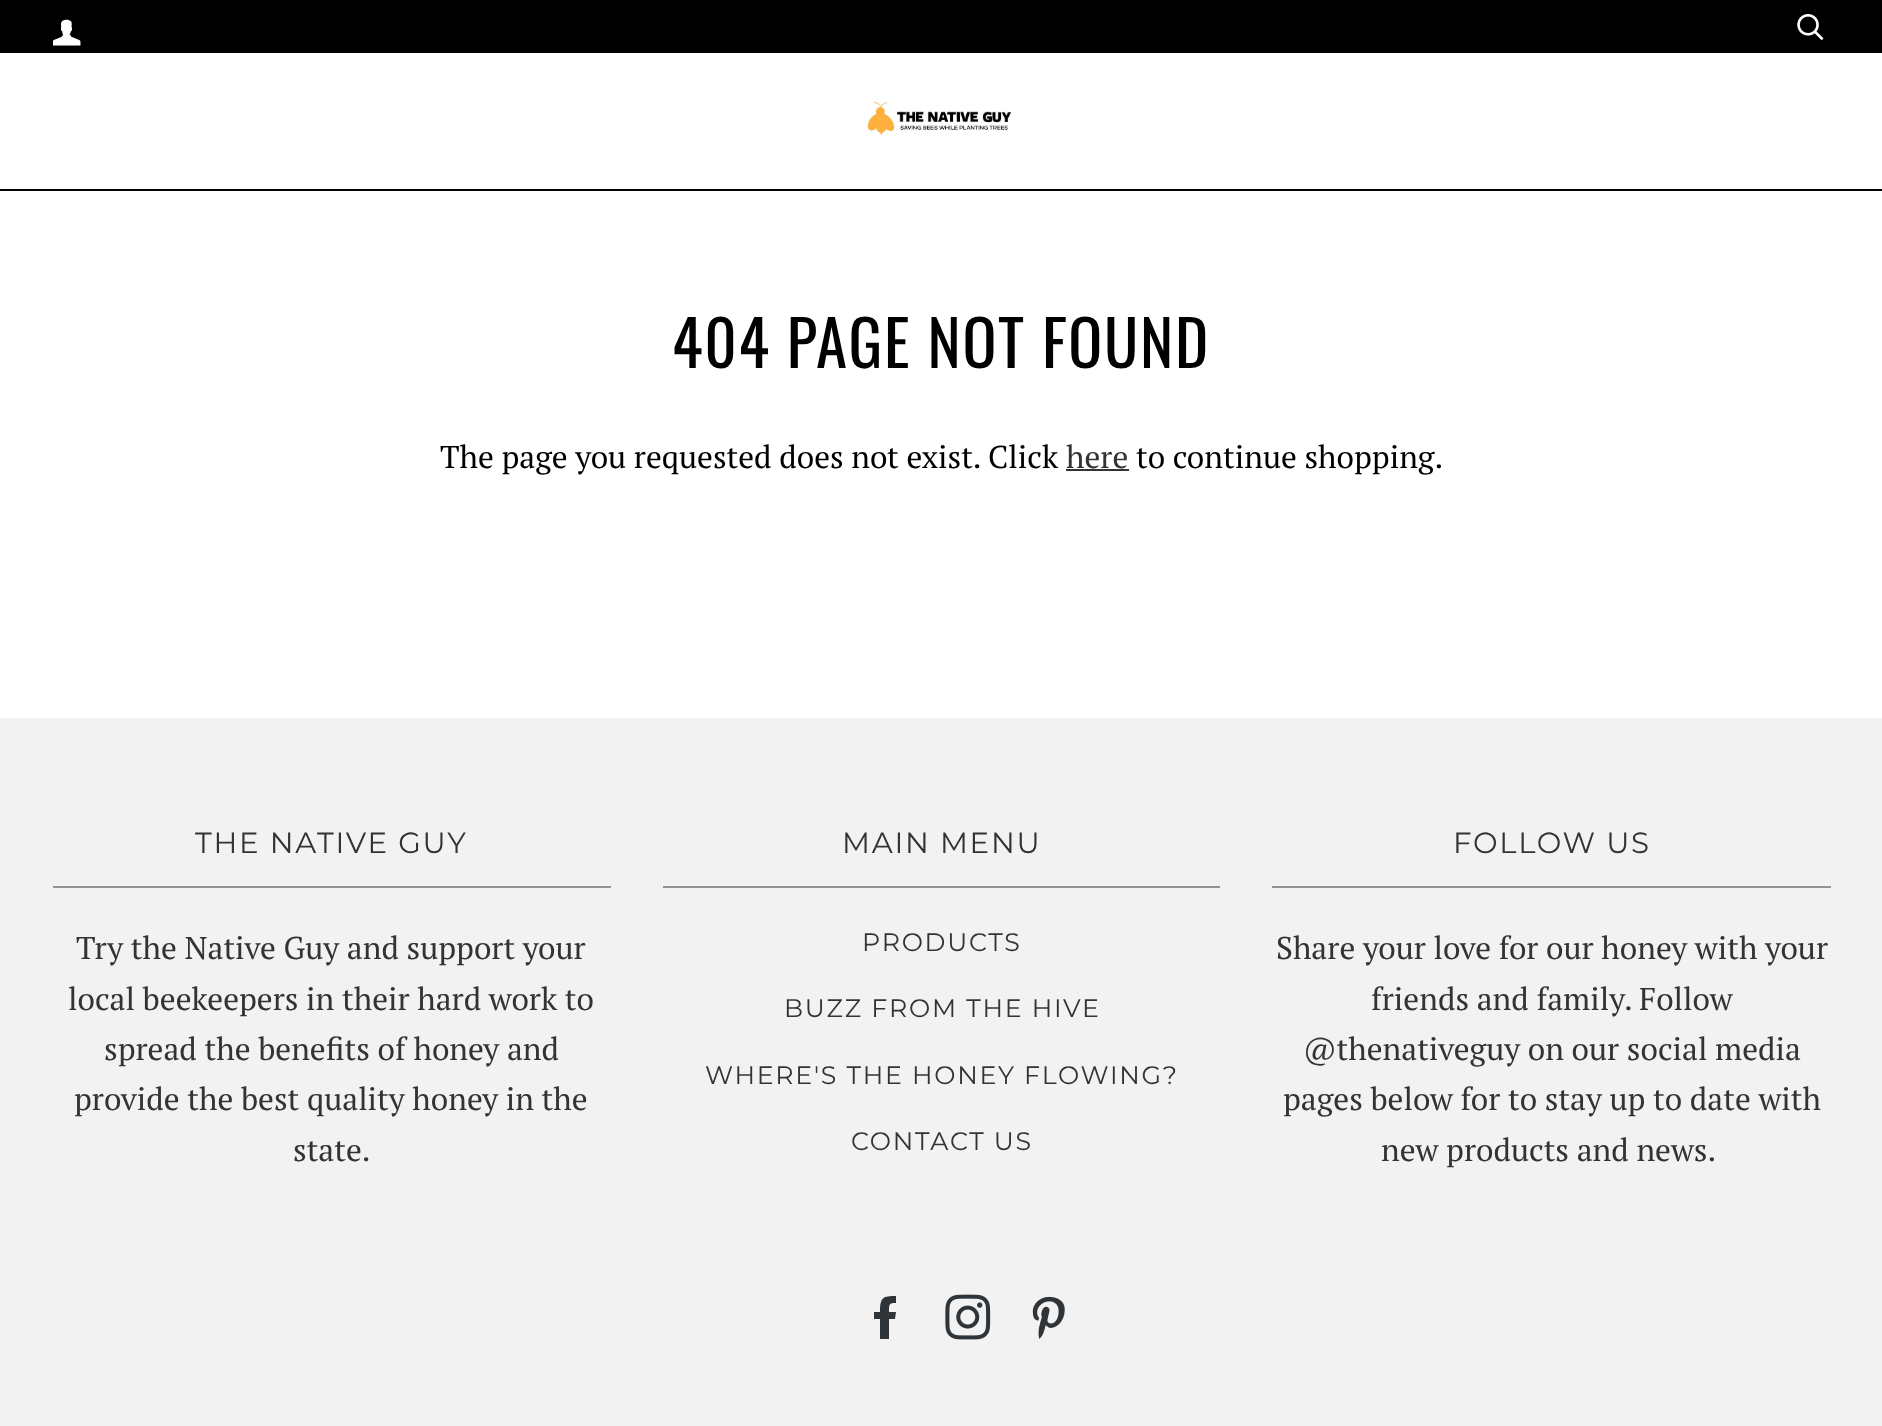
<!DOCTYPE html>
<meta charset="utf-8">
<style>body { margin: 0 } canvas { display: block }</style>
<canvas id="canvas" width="1882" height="1426"></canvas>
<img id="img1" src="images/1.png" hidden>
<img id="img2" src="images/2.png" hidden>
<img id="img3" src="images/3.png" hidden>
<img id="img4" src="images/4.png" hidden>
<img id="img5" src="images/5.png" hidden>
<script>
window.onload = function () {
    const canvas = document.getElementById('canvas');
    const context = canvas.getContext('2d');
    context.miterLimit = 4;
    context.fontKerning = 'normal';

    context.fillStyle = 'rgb(255, 255, 255)';
    context.fillRect(0, 0, 1882, 1426);
    context.fillStyle = 'rgb(0, 0, 0)';
    context.fillRect(0, 0, 1882, 53);
    context.drawImage(document.getElementById('img1'), 53, 19, 28, 27);
    context.drawImage(document.getElementById('img2'), 1797, 14, 27, 26);
    context.fillRect(0, 189, 1882, 2);
    context.drawImage(document.getElementById('img3'), 867, 101, 145, 35);
    context.fillStyle = 'rgb(51, 51, 51)';
    context.fillRect(1066, 469, 63, 2);
    context.fillStyle = 'rgb(242, 242, 242)';
    context.fillRect(0, 718, 1882, 708);
    context.fillStyle = 'rgb(147, 147, 147)';
    context.fillRect(53, 886, 558, 2);
    context.fillRect(663, 886, 557, 2);
    context.fillRect(1272, 886, 559, 2);
    context.fillStyle = 'rgb(46, 52, 56)';
    context.beginPath();
    context.moveTo(889, 1339);
    context.lineTo(889, 1319);
    context.lineTo(895, 1319);
    context.lineTo(896, 1312);
    context.lineTo(889, 1312);
    context.bezierCurveTo(889, 1304, 889, 1303, 896, 1303);
    context.lineTo(896, 1296);
    context.bezierCurveTo(883, 1296, 880, 1297, 880, 1312);
    context.lineTo(874, 1312);
    context.lineTo(874, 1319);
    context.lineTo(880, 1319);
    context.lineTo(880, 1339);
    context.closePath();
    context.fill();
    context.drawImage(document.getElementById('img4'), 945, 1294, 46, 46);
    context.drawImage(document.getElementById('img5'), 1032, 1296, 33, 43);
    context.letterSpacing = '1.75px';
    context.font = '63px Oswald';
    context.fillStyle = 'rgb(0, 0, 0)';
    context.fillText('404 PAGE NOT FOUND', 672, 368);
    context.letterSpacing = '0px';
    context.font = '31.5px PT Serif';
    context.fillText('The page you requested does not exist. Click', 440, 468);
    context.fillStyle = 'rgb(51, 51, 51)';
    context.fillText('here', 1066, 468);
    context.fillStyle = 'rgb(0, 0, 0)';
    context.fillText('to continue shopping.', 1136, 468);
    context.letterSpacing = '1.75px';
    context.font = '100 29.25px Montserrat';
    context.fillStyle = 'rgb(51, 51, 51)';
    context.fillText('THE NATIVE GUY', 195, 853);
    context.letterSpacing = '0px';
    context.font = '31.5px PT Serif';
    context.fillText('Try the Native Guy and support your', 76, 959);
    context.fillText('local beekeepers in their hard work to', 68, 1010);
    context.fillText('spread the benefits of honey and', 104, 1060);
    context.fillText('provide the best quality honey in the', 74, 1110);
    context.fillText('state.', 293, 1161);
    context.letterSpacing = '1.75px';
    context.font = '100 29.25px Montserrat';
    context.fillText('MAIN MENU', 842, 853);
    context.font = '100 25.25px Montserrat';
    context.fillText('PRODUCTS', 862, 951);
    context.fillText('BUZZ FROM THE HIVE', 784, 1017);
    context.fillText('WHERE\'S THE HONEY FLOWING?', 705, 1084);
    context.fillText('CONTACT US', 851, 1150);
    context.font = '100 29.25px Montserrat';
    context.fillText('FOLLOW US', 1453, 853);
    context.letterSpacing = '0px';
    context.font = '31.5px PT Serif';
    context.fillText('Share your love for our honey with your', 1276, 959);
    context.fillText('friends and family. Follow', 1371, 1010);
    context.fillText('@thenativeguy on our social media', 1303, 1060);
    context.fillText('pages below for to stay up to date with', 1283, 1110);
    context.fillText('new products and news.', 1381, 1161);
};
</script>
